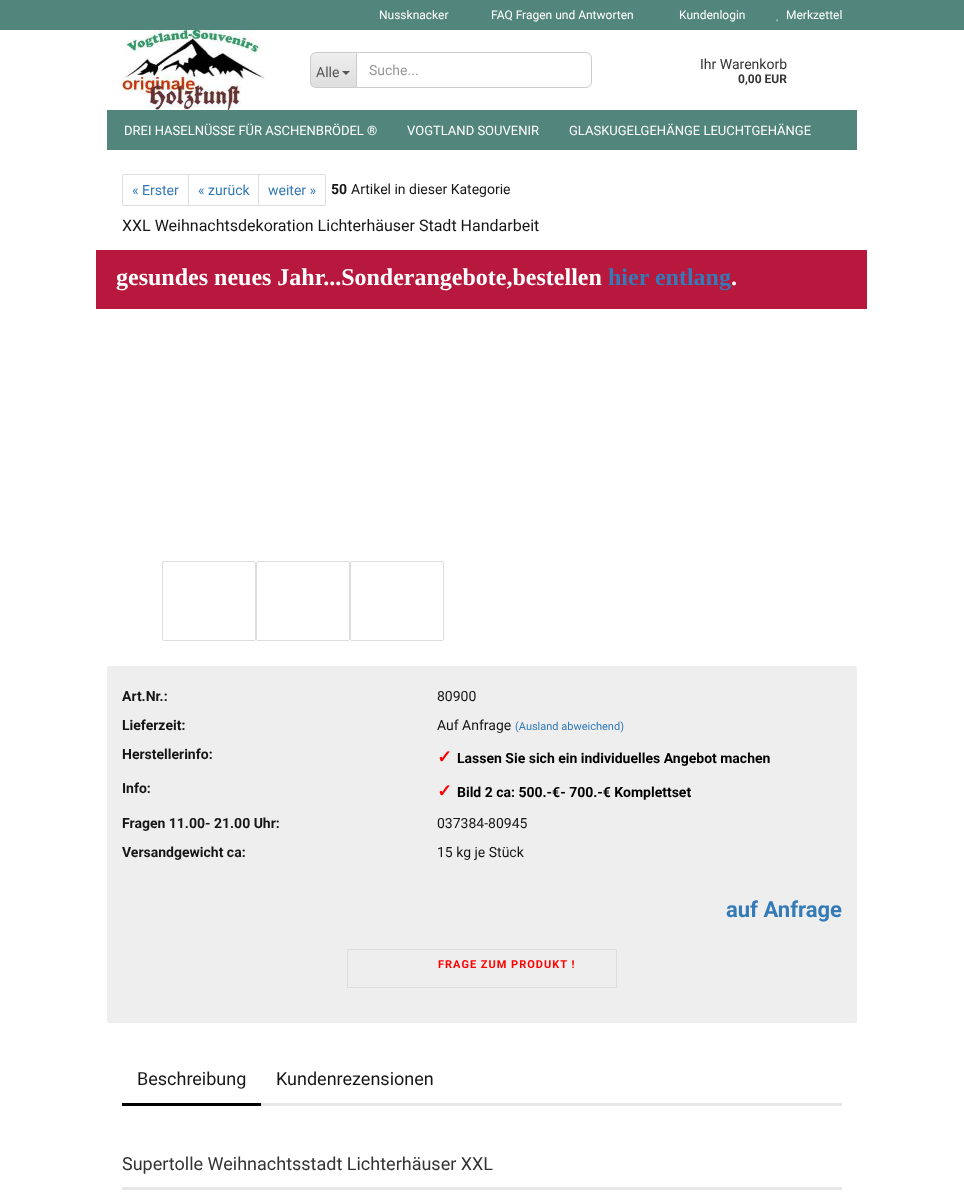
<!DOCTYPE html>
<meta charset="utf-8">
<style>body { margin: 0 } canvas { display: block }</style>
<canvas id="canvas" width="964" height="1203"></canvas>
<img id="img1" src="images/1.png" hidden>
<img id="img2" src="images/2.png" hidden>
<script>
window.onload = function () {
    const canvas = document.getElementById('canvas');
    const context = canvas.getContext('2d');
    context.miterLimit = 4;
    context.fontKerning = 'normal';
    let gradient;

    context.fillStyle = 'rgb(255, 255, 255)';
    context.fillRect(0, 0, 964, 1203);
    context.fillStyle = 'rgb(82, 133, 124)';
    context.fillRect(0, 0, 964, 30);
    context.drawImage(document.getElementById('img1'), 776, 19, 2, 3);
    context.drawImage(document.getElementById('img2'), 122, 30, 143, 80);
    context.save();
    context.beginPath();
    context.roundRect(310, 52, 46, 36, [6, 0, 0, 6]);
    context.clip();
    gradient = context.createLinearGradient(334, 53, 334, 87);
    gradient.addColorStop(0, 'rgb(238, 238, 238)');
    gradient.addColorStop(1, 'rgb(222, 222, 222)');
    context.fillStyle = gradient;
    context.fillRect(310, 53, 46, 34);
    context.restore();
    context.fillStyle = 'rgb(204, 204, 204)';
    context.beginPath();
    context.moveTo(316, 52);
    context.lineTo(356, 52);
    context.lineTo(356, 88);
    context.lineTo(316, 88);
    context.bezierCurveTo(313, 88, 310, 85, 310, 82);
    context.lineTo(310, 58);
    context.bezierCurveTo(310, 55, 313, 52, 316, 52);
    context.closePath();
    context.moveTo(316, 53);
    context.lineTo(356, 53);
    context.lineTo(356, 87);
    context.lineTo(316, 87);
    context.bezierCurveTo(313, 87, 311, 85, 311, 82);
    context.lineTo(311, 58);
    context.bezierCurveTo(311, 55, 313, 53, 316, 53);
    context.closePath();
    context.fill('evenodd');
    context.fillStyle = 'rgb(85, 85, 85)';
    context.beginPath();
    context.moveTo(342, 71);
    context.lineTo(350, 71);
    context.lineTo(346, 75);
    context.closePath();
    context.fill();
    context.beginPath();
    context.roundRect(356.5, 52.5, 235, 35, [0, 5.5, 5.5, 0]);
    context.strokeStyle = 'rgb(204, 204, 204)';
    context.stroke();
    context.fillStyle = 'rgb(82, 133, 124)';
    context.fillRect(107, 110, 750, 40);
    context.fillStyle = 'rgb(184, 24, 61)';
    context.fillRect(96, 250, 771, 59);
    context.beginPath();
    context.roundRect(122.5, 174.5, 66, 31, [1.5, 0, 0, 1.5]);
    context.strokeStyle = 'rgb(221, 221, 221)';
    context.stroke();
    context.strokeRect(188.5, 174.5, 70, 31);
    context.fillStyle = 'rgb(255, 255, 255)';
    context.beginPath();
    context.roundRect(258.5, 174.5, 67, 31, [0, 1.5, 1.5, 0]);
    context.fill();
    context.stroke();
    context.beginPath();
    context.roundRect(162.5, 561.5, 93, 79, 1.5);
    context.stroke();
    context.beginPath();
    context.roundRect(256.5, 561.5, 93, 79, 1.5);
    context.stroke();
    context.beginPath();
    context.roundRect(350.5, 561.5, 93, 79, 1.5);
    context.stroke();
    context.fillStyle = 'rgb(238, 238, 238)';
    context.beginPath();
    context.roundRect(107, 666, 750, 357, 2);
    context.fill();
    context.strokeRect(347.5, 949.5, 269, 38);
    context.fillStyle = 'rgb(231, 231, 231)';
    context.fillRect(261, 1103, 581, 3);
    context.fillStyle = 'rgb(0, 0, 0)';
    context.fillRect(122, 1103, 139, 3);
    context.fillStyle = 'rgb(231, 231, 231)';
    context.fillRect(122, 1187, 720, 3);
    context.font = '12px Roboto';
    context.fillStyle = 'rgb(255, 255, 255)';
    context.fillText('Nussknacker', 379, 19);
    context.fillText('FAQ Fragen und Antworten', 491, 19);
    context.fillText('Kundenlogin', 679, 19);
    context.fillText('Merkzettel', 786, 19);
    context.font = '14px Roboto';
    context.fillStyle = 'rgb(85, 85, 85)';
    context.fillText('Alle', 316, 77);
    context.fillStyle = 'rgb(153, 153, 153)';
    context.fillText('Suche...', 369, 75);
    context.fillStyle = 'rgb(51, 51, 51)';
    context.fillText('Ihr Warenkorb', 700, 69);
    context.font = 'bold 12px Roboto';
    context.fillText('0,00 EUR', 738, 83);
    context.font = '13px Roboto';
    context.fillStyle = 'rgb(255, 255, 255)';
    context.fillText('DREI HASELNÜSSE FÜR ASCHENBRÖDEL ®', 124, 135);
    context.fillText('VOGTLAND SOUVENIR', 407, 135);
    context.fillText('GLASKUGELGEHÄNGE LEUCHTGEHÄNGE', 569, 135);
    context.font = 'bold 24px Liberation Serif';
    context.fillText('gesundes neues Jahr...Sonderangebote,bestellen', 116, 285);
    context.fillStyle = 'rgb(51, 122, 183)';
    context.fillText('hier entlang', 608, 285);
    context.fillStyle = 'rgb(255, 255, 255)';
    context.fillText('.', 731, 285);
    context.font = '14px Roboto';
    context.fillStyle = 'rgb(51, 122, 183)';
    context.fillText('« Erster', 132, 195);
    context.fillText('« zurück', 198, 195);
    context.fillText('weiter »', 268, 195);
    context.font = 'bold 14px Roboto';
    context.fillStyle = 'rgb(22, 22, 22)';
    context.fillText('50', 331, 194);
    context.font = '14px Roboto';
    context.fillText('Artikel in dieser Kategorie', 351, 194);
    context.font = '16px Roboto';
    context.fillText('XXL Weihnachtsdekoration Lichterhäuser Stadt Handarbeit', 122, 231);
    context.font = 'bold 14px Roboto';
    context.fillText('Art.Nr.:', 122, 701);
    context.font = '14px Roboto';
    context.fillText('80900', 437, 701);
    context.font = 'bold 14px Roboto';
    context.fillText('Lieferzeit:', 122, 730);
    context.font = '14px Roboto';
    context.fillText('Auf Anfrage', 437, 730);
    context.font = '11px Roboto';
    context.fillStyle = 'rgb(51, 122, 183)';
    context.fillText('(Ausland abweichend)', 515, 730);
    context.font = 'bold 14px Roboto';
    context.fillStyle = 'rgb(22, 22, 22)';
    context.fillText('Herstellerinfo:', 122, 759);
    context.font = 'bold 18px DejaVu Sans';
    context.fillStyle = 'rgb(255, 0, 0)';
    context.fillText('✓', 437, 763);
    context.font = 'bold 14px Roboto';
    context.fillStyle = 'rgb(0, 0, 0)';
    context.fillText('Lassen Sie sich ein individuelles Angebot machen', 457, 763);
    context.fillStyle = 'rgb(22, 22, 22)';
    context.fillText('Info:', 122, 793);
    context.font = 'bold 18px DejaVu Sans';
    context.fillStyle = 'rgb(255, 0, 0)';
    context.fillText('✓', 437, 797);
    context.font = 'bold 14px Roboto';
    context.fillStyle = 'rgb(0, 0, 0)';
    context.fillText('Bild 2 ca: 500.-€- 700.-€ Komplettset', 457, 797);
    context.fillStyle = 'rgb(22, 22, 22)';
    context.fillText('Fragen 11.00- 21.00 Uhr:', 122, 828);
    context.font = '14px Roboto';
    context.fillText('037384-80945', 437, 828);
    context.font = 'bold 14px Roboto';
    context.fillText('Versandgewicht ca:', 122, 857);
    context.font = '14px Roboto';
    context.fillText('15 kg je Stück', 437, 857);
    context.font = 'bold 22px Roboto';
    context.fillStyle = 'rgb(51, 122, 183)';
    context.fillText('auf Anfrage', 726, 917);
    context.letterSpacing = '1px';
    context.font = 'bold 11px Roboto';
    context.fillStyle = 'rgb(255, 0, 0)';
    context.fillText('FRAGE ZUM PRODUKT !', 438, 968);
    context.letterSpacing = '0px';
    context.font = '18px Roboto';
    context.fillStyle = 'rgb(22, 22, 22)';
    context.fillText('Beschreibung', 137, 1085);
    context.fillText('Kundenrezensionen', 276, 1085);
    context.fillStyle = 'rgb(51, 51, 51)';
    context.fillText('Supertolle Weihnachtsstadt Lichterhäuser XXL', 122, 1170);
};
</script>
